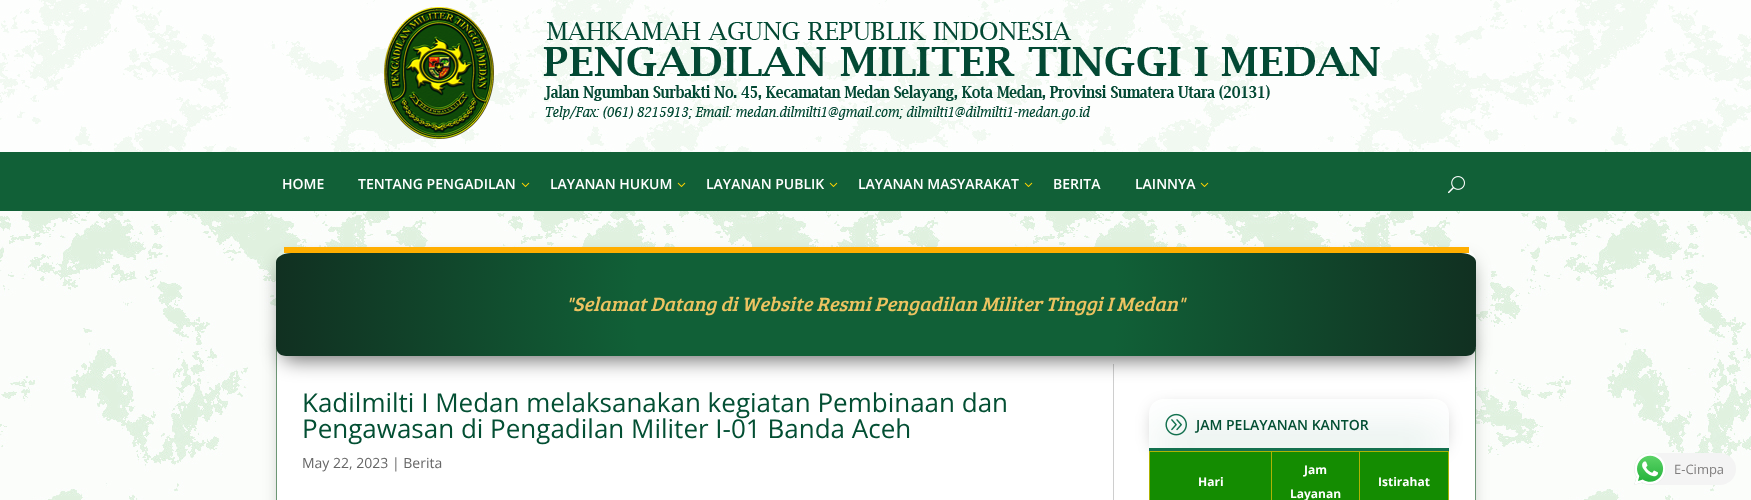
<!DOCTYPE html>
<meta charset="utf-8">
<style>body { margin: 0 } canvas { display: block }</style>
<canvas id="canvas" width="1751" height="500"></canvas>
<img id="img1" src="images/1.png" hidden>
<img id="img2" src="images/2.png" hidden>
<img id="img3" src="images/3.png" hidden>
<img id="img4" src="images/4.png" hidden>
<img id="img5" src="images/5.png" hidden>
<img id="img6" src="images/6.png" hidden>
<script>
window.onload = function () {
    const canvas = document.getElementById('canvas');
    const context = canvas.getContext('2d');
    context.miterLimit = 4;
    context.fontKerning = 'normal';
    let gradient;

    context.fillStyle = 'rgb(255, 255, 255)';
    context.fillRect(0, 0, 1751, 500);
    context.drawImage(document.getElementById('img1'), 0, 0, 1751, 500);
    context.fillStyle = 'rgba(255, 255, 255, 0.55)';
    context.fillRect(0, 0, 1751, 152);
    context.drawImage(document.getElementById('img2'), 384, 7, 996, 132);
    context.fillStyle = 'rgb(17, 96, 55)';
    context.fillRect(0, 152, 1751, 59);
    context.drawImage(document.getElementById('img3'), 521, 182, 9, 5);
    context.drawImage(document.getElementById('img3'), 677, 182, 9, 5);
    context.drawImage(document.getElementById('img3'), 829, 182, 9, 5);
    context.drawImage(document.getElementById('img3'), 1024, 182, 9, 5);
    context.drawImage(document.getElementById('img3'), 1200, 182, 9, 5);
    context.drawImage(document.getElementById('img4'), 1448, 176, 17, 18);
    context.fillStyle = 'rgba(0, 0, 0, 0.3)';
    context.filter = 'blur(9px)';
    context.beginPath();
    context.roundRect(282, 342, 1188, 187, 2);
    context.fill();
    context.filter = 'none';
    context.strokeStyle = 'rgb(109, 150, 117)';
    context.strokeRect(276.5, 348.5, 1199, 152);
    context.fillStyle = 'rgb(255, 255, 255)';
    context.fillRect(277, 350, 1198, 150);
    context.fillStyle = 'rgb(206, 206, 206)';
    context.fillRect(1113, 364, 1, 136);
    context.save();
    context.beginPath();
    context.moveTo(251, 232);
    context.lineTo(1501, 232);
    context.lineTo(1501, 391);
    context.lineTo(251, 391);
    context.closePath();
    context.moveTo(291, 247);
    context.lineTo(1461, 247);
    context.bezierCurveTo(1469.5, 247, 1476, 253.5, 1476, 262);
    context.lineTo(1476, 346);
    context.bezierCurveTo(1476, 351.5, 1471.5, 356, 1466, 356);
    context.lineTo(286, 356);
    context.bezierCurveTo(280.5, 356, 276, 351.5, 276, 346);
    context.lineTo(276, 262);
    context.bezierCurveTo(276, 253.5, 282.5, 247, 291, 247);
    context.closePath();
    context.clip('evenodd');
    context.fillStyle = 'rgba(0, 0, 0, 0.56)';
    context.filter = 'blur(10px)';
    context.beginPath();
    context.roundRect(282, 263, 1188, 97, 9);
    context.fill();
    context.filter = 'none';
    context.restore();
    gradient = context.createRadialGradient(876, 305, 0, 876, 305, 602);
    gradient.addColorStop(0.4, 'rgb(17, 96, 55)');
    gradient.addColorStop(1, 'rgb(17, 48, 33)');
    context.fillStyle = gradient;
    context.beginPath();
    context.moveTo(291, 253);
    context.lineTo(1461, 253);
    context.bezierCurveTo(1469, 253, 1476, 257, 1476, 262);
    context.lineTo(1476, 346);
    context.bezierCurveTo(1476, 352, 1472, 356, 1466, 356);
    context.lineTo(286, 356);
    context.bezierCurveTo(280, 356, 276, 352, 276, 346);
    context.lineTo(276, 262);
    context.bezierCurveTo(276, 257, 283, 253, 291, 253);
    context.closePath();
    context.fill();
    context.fillStyle = 'rgb(255, 174, 0)';
    context.fillRect(284, 247, 1185, 6);
    context.save();
    context.beginPath();
    context.moveTo(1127, 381);
    context.lineTo(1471, 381);
    context.lineTo(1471, 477);
    context.lineTo(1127, 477);
    context.closePath();
    context.moveTo(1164, 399);
    context.lineTo(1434, 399);
    context.bezierCurveTo(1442.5, 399, 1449, 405.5, 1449, 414);
    context.lineTo(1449, 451);
    context.lineTo(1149, 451);
    context.lineTo(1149, 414);
    context.bezierCurveTo(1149, 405.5, 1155.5, 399, 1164, 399);
    context.closePath();
    context.clip('evenodd');
    context.fillStyle = 'rgba(0, 0, 0, 0.3)';
    context.filter = 'blur(9px)';
    context.beginPath();
    context.roundRect(1155, 409, 288, 40, 9);
    context.fill();
    context.filter = 'none';
    context.restore();
    context.fillStyle = 'rgb(19, 113, 79)';
    context.fillRect(1149, 448, 300, 3);
    context.drawImage(document.getElementById('img5'), 1165, 413, 22, 23);
    context.save();
    context.beginPath();
    context.moveTo(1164, 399);
    context.lineTo(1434, 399);
    context.bezierCurveTo(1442.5, 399, 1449, 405.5, 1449, 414);
    context.lineTo(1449, 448);
    context.lineTo(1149, 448);
    context.lineTo(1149, 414);
    context.bezierCurveTo(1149, 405.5, 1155.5, 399, 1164, 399);
    context.closePath();
    context.clip();
    context.fillStyle = 'rgba(19, 113, 79, 0.21)';
    context.filter = 'blur(20px)';
    context.beginPath();
    context.rect(1157, 434, 284, 17);
    context.fill();
    context.filter = 'none';
    context.restore();
    context.fillStyle = 'rgb(173, 179, 4)';
    context.fillRect(1149, 451, 300, 1);
    context.fillRect(1448, 451, 1, 49);
    context.fillRect(1149, 451, 1, 49);
    context.fillStyle = 'rgb(20, 140, 1)';
    context.fillRect(1150, 452, 298, 48);
    context.fillStyle = 'rgb(173, 179, 4)';
    context.fillRect(1271, 451, 1, 49);
    context.fillRect(1359, 451, 1, 49);
    context.fillStyle = 'rgb(244, 244, 244)';
    context.beginPath();
    context.roundRect(1634, 453, 102, 32, 16);
    context.fill();
    context.drawImage(document.getElementById('img6'), 1634, 453, 32, 32);
    context.font = '600 14px Open Sans';
    context.fillStyle = 'rgb(255, 255, 255)';
    context.fillText('HOME', 282, 189);
    context.fillText('TENTANG PENGADILAN', 358, 189);
    context.fillText('LAYANAN HUKUM', 550, 189);
    context.fillText('LAYANAN PUBLIK', 706, 189);
    context.fillText('LAYANAN MASYARAKAT', 858, 189);
    context.fillText('BERITA', 1053, 189);
    context.fillText('LAINNYA', 1135, 189);
    context.font = 'italic 20px Bree Serif';
    context.fillStyle = 'rgb(237, 195, 97)';
    context.fillText('"Selamat Datang di Website Resmi Pengadilan Militer Tinggi I Medan"', 566, 311);
    context.font = '26px Open Sans';
    context.fillStyle = 'rgb(3, 79, 51)';
    context.fillText('Kadilmilti I Medan melaksanakan kegiatan Pembinaan dan', 302, 412);
    context.fillText('Pengawasan di Pengadilan Militer I-01 Banda Aceh', 302, 438);
    context.font = '14px Open Sans';
    context.fillStyle = 'rgb(102, 102, 102)';
    context.fillText('May 22, 2023 | Berita', 302, 468);
    context.font = '600 14px Open Sans';
    context.fillStyle = 'rgb(3, 79, 51)';
    context.fillText('JAM PELAYANAN KANTOR', 1196, 430);
    context.font = 'bold 12px Open Sans';
    context.fillStyle = 'rgb(255, 255, 255)';
    context.fillText('Hari', 1198, 486);
    context.fillText('Jam', 1304, 474);
    context.fillText('Layanan', 1290, 498);
    context.fillText('Istirahat', 1378, 486);
    context.font = '13px Open Sans';
    context.fillStyle = 'rgb(127, 125, 125)';
    context.fillText('E-Cimpa', 1674, 474);
};
</script>
